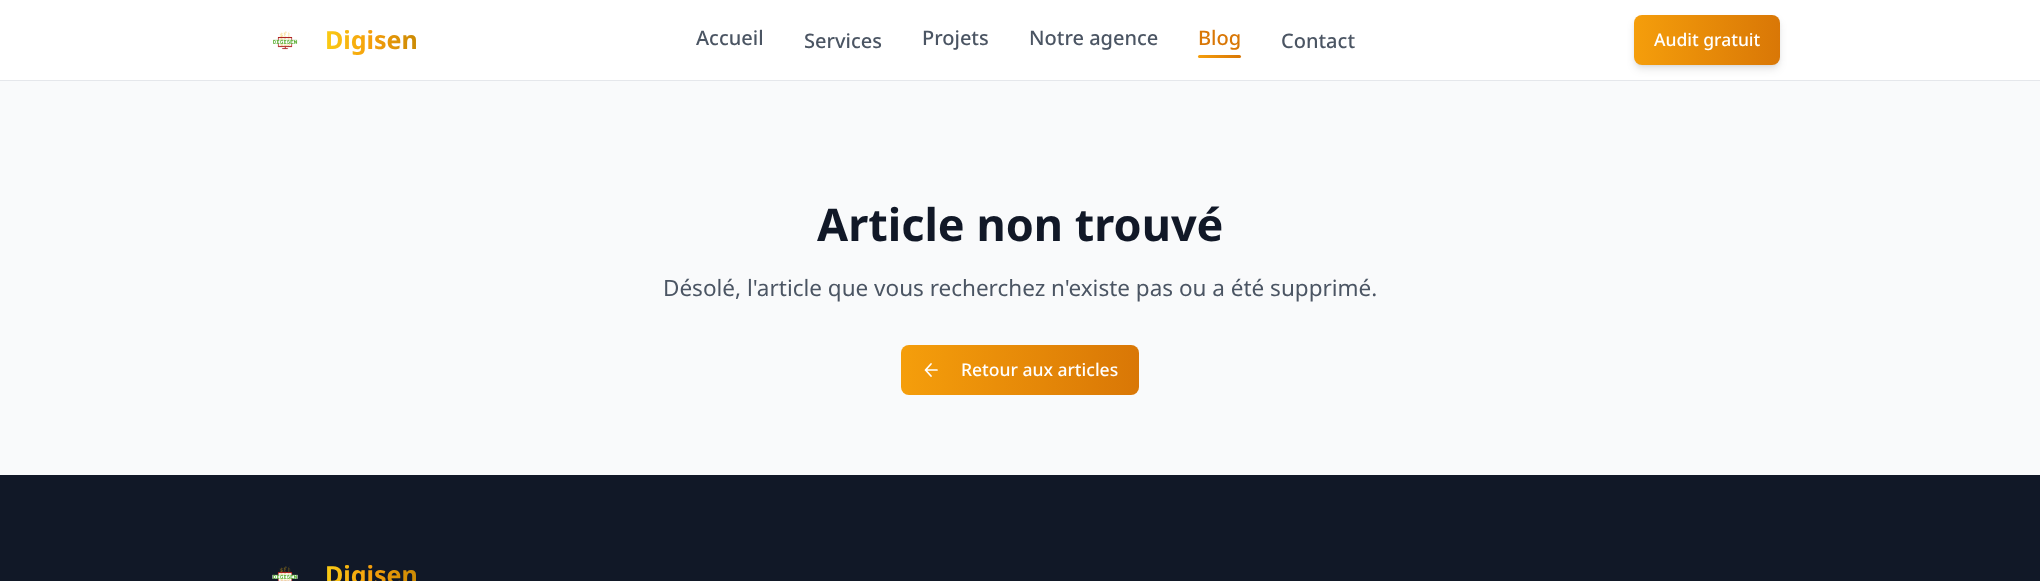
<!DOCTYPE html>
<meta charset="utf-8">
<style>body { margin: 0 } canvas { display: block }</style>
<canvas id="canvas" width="2040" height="581"></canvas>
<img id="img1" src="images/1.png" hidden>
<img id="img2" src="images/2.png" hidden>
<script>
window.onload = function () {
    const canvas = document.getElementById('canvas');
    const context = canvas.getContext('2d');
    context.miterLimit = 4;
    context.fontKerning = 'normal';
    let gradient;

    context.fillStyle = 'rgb(249, 250, 251)';
    context.fillRect(0, 0, 2040, 581);
    context.fillStyle = 'rgb(255, 255, 255)';
    context.fillRect(0, 0, 2040, 80);
    context.fillStyle = 'rgb(229, 231, 235)';
    context.fillRect(0, 80, 2040, 1);
    context.drawImage(document.getElementById('img1'), 273, 31, 25, 19);
    gradient = context.createLinearGradient(1198, 56, 1241, 56);
    gradient.addColorStop(0, 'rgb(245, 158, 11)');
    gradient.addColorStop(1, 'rgb(217, 119, 6)');
    context.fillStyle = gradient;
    context.beginPath();
    context.roundRect(1198, 55, 43, 3, 1.5);
    context.fill();
    context.fillStyle = 'rgba(0, 0, 0, 0.1)';
    context.filter = 'blur(2.5px)';
    context.beginPath();
    context.roundRect(1636, 20, 142, 45, 5);
    context.fill();
    context.filter = 'none';
    context.filter = 'blur(4px)';
    context.beginPath();
    context.roundRect(1635, 21, 144, 48, 6);
    context.fill();
    context.filter = 'none';
    gradient = context.createLinearGradient(1634, 40, 1780, 40);
    gradient.addColorStop(0, 'rgb(245, 158, 11)');
    gradient.addColorStop(1, 'rgb(217, 119, 6)');
    context.fillStyle = gradient;
    context.beginPath();
    context.roundRect(1634, 15, 146, 50, 8);
    context.fill();
    gradient = context.createLinearGradient(901, 370, 1139, 370);
    gradient.addColorStop(0, 'rgb(245, 158, 11)');
    gradient.addColorStop(1, 'rgb(217, 119, 6)');
    context.fillStyle = gradient;
    context.beginPath();
    context.roundRect(901, 345, 238, 50, 8);
    context.fill();
    context.beginPath();
    context.moveTo(931, 376);
    context.lineTo(925.5, 370);
    context.lineTo(931, 364);
    context.moveTo(937, 370);
    context.lineTo(925.5, 370);
    context.strokeStyle = 'rgb(255, 255, 255)';
    context.lineWidth = 1.7;
    context.lineCap = 'round';
    context.lineJoin = 'round';
    context.stroke();
    context.fillStyle = 'rgb(17, 24, 39)';
    context.fillRect(0, 475, 2040, 106);
    context.drawImage(document.getElementById('img2'), 272, 566, 26, 15);
    context.font = 'bold 25px Noto Sans';
    gradient = context.createLinearGradient(325, 40, 418, 40);
    gradient.addColorStop(0, 'rgb(250, 204, 21)');
    gradient.addColorStop(0.5, 'rgb(245, 158, 11)');
    gradient.addColorStop(1, 'rgb(202, 138, 4)');
    context.fillStyle = gradient;
    context.fillText('Digisen', 325, 49);
    context.font = '500 20px Noto Sans';
    context.fillStyle = 'rgb(75, 85, 99)';
    context.fillText('Accueil', 696, 45);
    context.fillText('Services', 804, 48);
    context.fillText('Projets', 922, 45);
    context.fillText('Notre agence', 1029, 45);
    context.fillStyle = 'rgb(217, 119, 6)';
    context.fillText('Blog', 1198, 45);
    context.fillStyle = 'rgb(75, 85, 99)';
    context.fillText('Contact', 1281, 48);
    context.font = '500 17.5px Noto Sans';
    context.fillStyle = 'rgb(255, 255, 255)';
    context.fillText('Audit gratuit', 1654, 46);
    context.font = 'bold 45px Noto Sans';
    context.fillStyle = 'rgb(17, 24, 39)';
    context.fillText('Article non trouvé', 817, 241);
    context.font = '22.5px Noto Sans';
    context.fillStyle = 'rgb(75, 85, 99)';
    context.fillText('Désolé, l\'article que vous recherchez n\'existe pas ou a été supprimé.', 663, 296);
    context.font = '500 17.5px Noto Sans';
    context.fillStyle = 'rgb(255, 255, 255)';
    context.fillText('Retour aux articles', 961, 376);
    context.font = 'bold 25px Noto Sans';
    gradient = context.createLinearGradient(325, 575, 418, 575);
    gradient.addColorStop(0, 'rgb(250, 204, 21)');
    gradient.addColorStop(0.5, 'rgb(245, 158, 11)');
    gradient.addColorStop(1, 'rgb(202, 138, 4)');
    context.fillStyle = gradient;
    context.fillText('Digisen', 325, 584);
};
</script>
